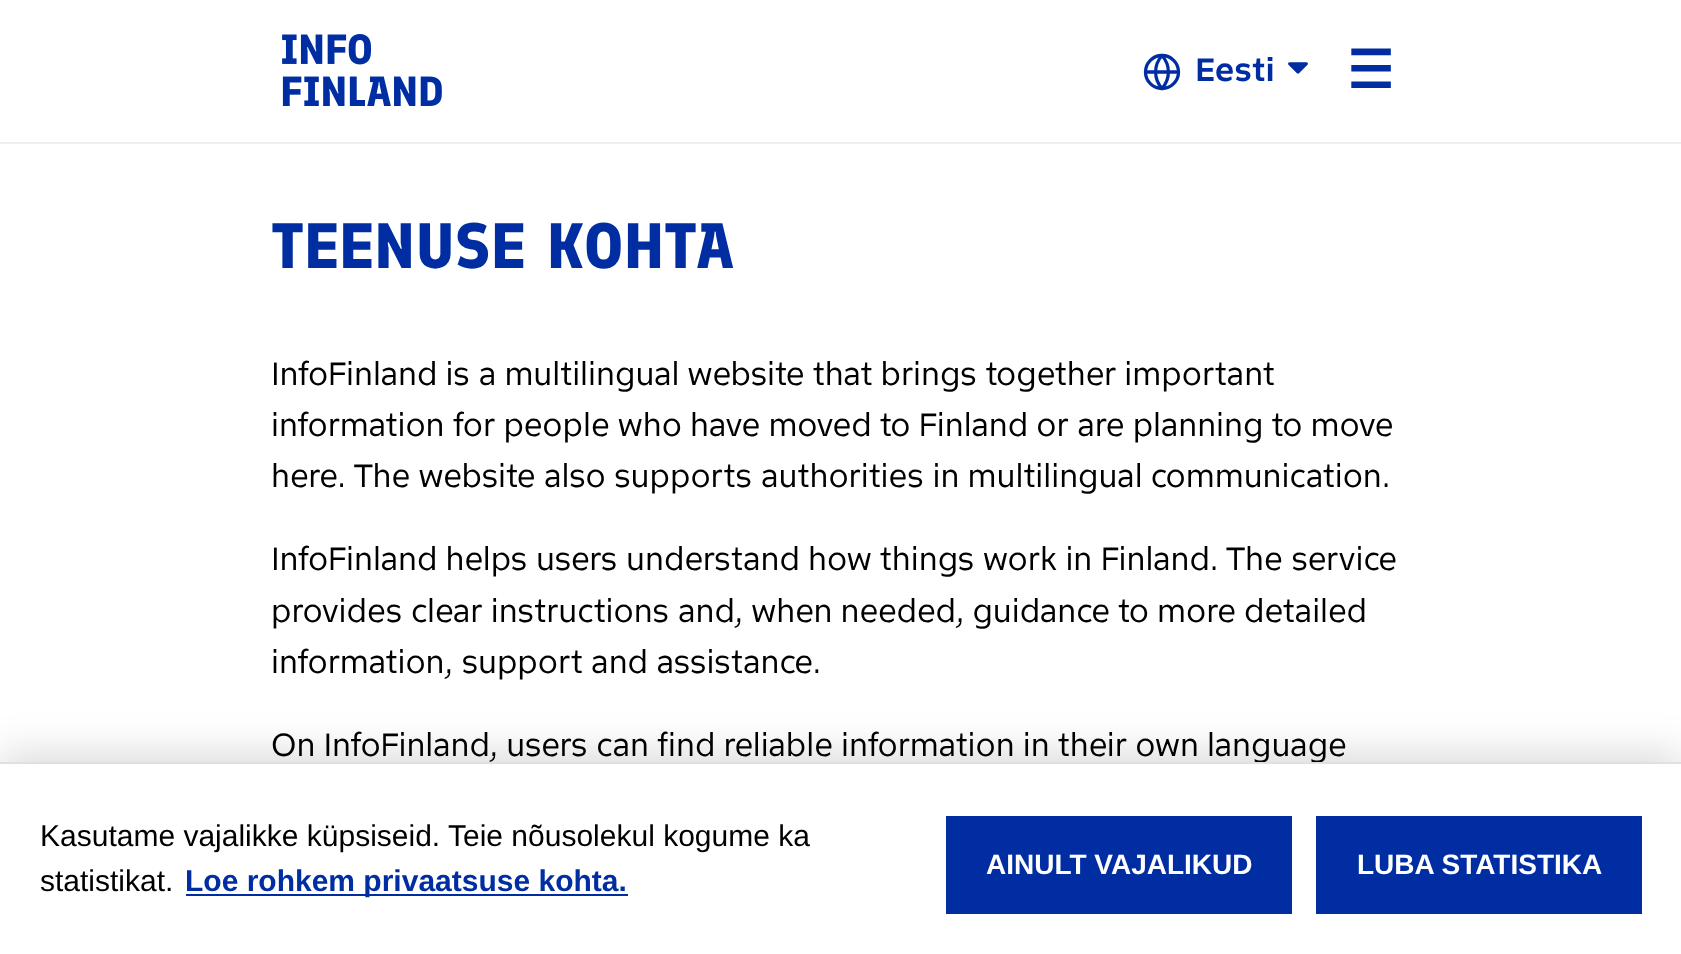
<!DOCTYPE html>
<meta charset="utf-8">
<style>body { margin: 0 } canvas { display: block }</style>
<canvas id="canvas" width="1681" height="954"></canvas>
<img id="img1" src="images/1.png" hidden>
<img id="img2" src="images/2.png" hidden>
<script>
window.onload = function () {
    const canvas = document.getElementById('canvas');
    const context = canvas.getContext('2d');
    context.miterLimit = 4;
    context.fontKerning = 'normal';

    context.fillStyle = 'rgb(255, 255, 255)';
    context.fillRect(0, 0, 1681, 954);
    context.fillStyle = 'rgb(238, 238, 238)';
    context.fillRect(0, 142, 1681, 2);
    context.drawImage(document.getElementById('img1'), 282, 34, 160, 72);
    context.beginPath();
    context.arc(1162, 72, 16.5, 0, 2 * Math.PI);
    context.strokeStyle = 'rgb(0, 46, 162)';
    context.lineWidth = 3.3;
    context.stroke();
    context.beginPath();
    context.moveTo(1145.5, 72);
    context.lineTo(1178.5, 72);
    context.moveTo(1162, 55.5);
    context.bezierCurveTo(1170.5, 65, 1170.5, 79, 1162, 88.5);
    context.bezierCurveTo(1153.5, 79, 1153.5, 65, 1162, 55.5);
    context.closePath();
    context.lineCap = 'round';
    context.lineJoin = 'round';
    context.stroke();
    context.drawImage(document.getElementById('img2'), 1288, 62, 20, 12);
    context.fillStyle = 'rgba(0, 0, 0, 0.15)';
    context.filter = 'blur(20px)';
    context.beginPath();
    context.rect(0, 754, 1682, 192);
    context.fill();
    context.filter = 'none';
    context.fillStyle = 'rgb(255, 255, 255)';
    context.fillRect(0, 764, 1681, 190);
    context.fillStyle = 'rgb(0, 46, 162)';
    context.fillRect(186, 894, 442, 2);
    context.fillRect(946, 816, 346, 98);
    context.fillRect(1316, 816, 326, 98);
    context.font = 'bold 32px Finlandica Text';
    context.fillText('Eesti', 1195, 81);
    context.font = 'bold 52px DejaVu Sans';
    context.fillText('☰', 1347, 88);
    context.font = 'bold 64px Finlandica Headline';
    context.fillText('TEENUSE KOHTA', 271, 268);
    context.font = '32px Finlandica Text';
    context.fillStyle = 'rgb(0, 0, 0)';
    context.fillText('InfoFinland is a multilingual website that brings together important', 271, 385);
    context.fillText('information for people who have moved to Finland or are planning to move', 271, 436);
    context.fillText('here. The website also supports authorities in multilingual communication.', 271, 487);
    context.fillText('InfoFinland helps users understand how things work in Finland. The service', 271, 570);
    context.fillText('provides clear instructions and, when needed, guidance to more detailed', 271, 622);
    context.fillText('information, support and assistance.', 271, 673);
    context.fillText('On InfoFinland, users can find reliable information in their own language', 271, 756);
    context.fillStyle = 'rgb(224, 224, 224)';
    context.fillRect(0, 762, 1681, 2);
    context.font = '30px Liberation Sans';
    context.fillStyle = 'rgb(0, 0, 0)';
    context.fillText('Kasutame vajalikke küpsiseid. Teie nõusolekul kogume ka', 40, 846);
    context.fillText('statistikat.', 40, 891);
    context.font = 'bold 30px Liberation Sans';
    context.fillStyle = 'rgb(0, 46, 162)';
    context.fillText('Loe rohkem privaatsuse kohta.', 185, 891);
    context.font = 'bold 28px Liberation Sans';
    context.fillStyle = 'rgb(255, 255, 255)';
    context.fillText('AINULT VAJALIKUD', 986, 874);
    context.fillText('LUBA STATISTIKA', 1357, 874);
};
</script>
